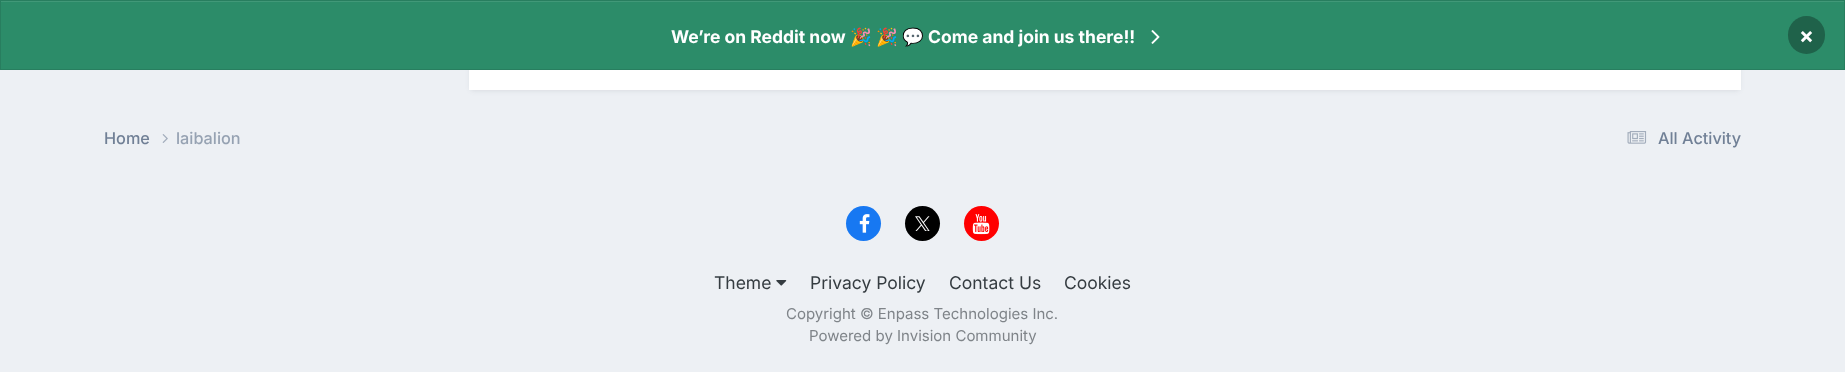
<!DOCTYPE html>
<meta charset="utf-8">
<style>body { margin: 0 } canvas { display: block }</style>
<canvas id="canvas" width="1845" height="372"></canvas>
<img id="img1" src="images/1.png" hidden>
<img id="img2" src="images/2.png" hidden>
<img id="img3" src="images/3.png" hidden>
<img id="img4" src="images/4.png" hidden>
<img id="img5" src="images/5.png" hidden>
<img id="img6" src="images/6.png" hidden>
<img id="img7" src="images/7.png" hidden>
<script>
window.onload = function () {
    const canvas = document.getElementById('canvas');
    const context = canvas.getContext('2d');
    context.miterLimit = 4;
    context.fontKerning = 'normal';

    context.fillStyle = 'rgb(237, 240, 244)';
    context.fillRect(0, 0, 1845, 372);
    context.fillStyle = 'rgba(45, 55, 72, 0.1)';
    context.filter = 'blur(2.5px)';
    context.beginPath();
    context.roundRect(470, -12, 1270, 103, 4);
    context.fill();
    context.filter = 'none';
    context.fillStyle = 'rgb(44, 140, 105)';
    context.fillRect(1, 2, 1843, 67);
    context.fillStyle = 'rgb(65, 152, 120)';
    context.fillRect(1, 1, 1843, 1);
    context.strokeStyle = 'rgb(40, 126, 95)';
    context.strokeRect(0.5, 0.5, 1844, 69);
    context.drawImage(document.getElementById('img1'), 1151, 30, 9, 14);
    context.fillStyle = 'rgb(31, 98, 74)';
    context.beginPath();
    context.roundRect(1788, 16, 37, 38, 18.5);
    context.fill();
    context.fillStyle = 'rgb(255, 255, 255)';
    context.fillRect(469, 70, 1272, 20);
    context.drawImage(document.getElementById('img2'), 162, 134, 6, 9);
    context.drawImage(document.getElementById('img3'), 1627, 131, 20, 13);
    context.fillStyle = 'rgb(23, 120, 242)';
    context.beginPath();
    context.arc(863.5, 223.5, 17.5, 0, 2 * Math.PI);
    context.fill();
    context.drawImage(document.getElementById('img4'), 859, 214, 11, 19);
    context.fillStyle = 'rgb(0, 0, 0)';
    context.beginPath();
    context.arc(922.5, 223.5, 17.5, 0, 2 * Math.PI);
    context.fill();
    context.drawImage(document.getElementById('img5'), 915, 216, 15, 15);
    context.fillStyle = 'rgb(255, 0, 0)';
    context.beginPath();
    context.arc(981.5, 223.5, 17.5, 0, 2 * Math.PI);
    context.fill();
    context.drawImage(document.getElementById('img6'), 972, 214, 18, 21);
    context.drawImage(document.getElementById('img7'), 776, 280, 11, 6);
    context.font = 'bold 17.5px Inter';
    context.fillStyle = 'rgb(255, 255, 255)';
    context.fillText('We’re on Reddit now', 671, 43);
    context.font = 'bold 17.5px Noto Color Emoji';
    context.fillText('🎉', 850, 43);
    context.fillText('🎉', 876, 43);
    context.fillText('💬', 902, 43);
    context.font = 'bold 17.5px Inter';
    context.fillText('Come and join us there!!', 928, 43);
    context.font = 'bold 22px Inter';
    context.fillText('×', 1799, 43);
    context.font = '500 16.25px Inter';
    context.fillStyle = 'rgb(113, 128, 150)';
    context.fillText('Home', 104, 144);
    context.fillStyle = 'rgb(150, 162, 178)';
    context.fillText('laibalion', 176, 144);
    context.fillStyle = 'rgb(113, 128, 150)';
    context.fillText('All Activity', 1658, 144);
    context.font = '17.5px Inter';
    context.fillStyle = 'rgb(53, 60, 65)';
    context.fillText('Theme', 714, 289);
    context.fillText('Privacy Policy', 810, 289);
    context.fillText('Contact Us', 949, 289);
    context.fillText('Cookies', 1064, 289);
    context.font = '15px Inter';
    context.fillStyle = 'rgb(127, 132, 137)';
    context.fillText('Copyright © Enpass Technologies Inc.', 786, 319);
    context.fillText('Powered by Invision Community', 809, 341);
};
</script>
